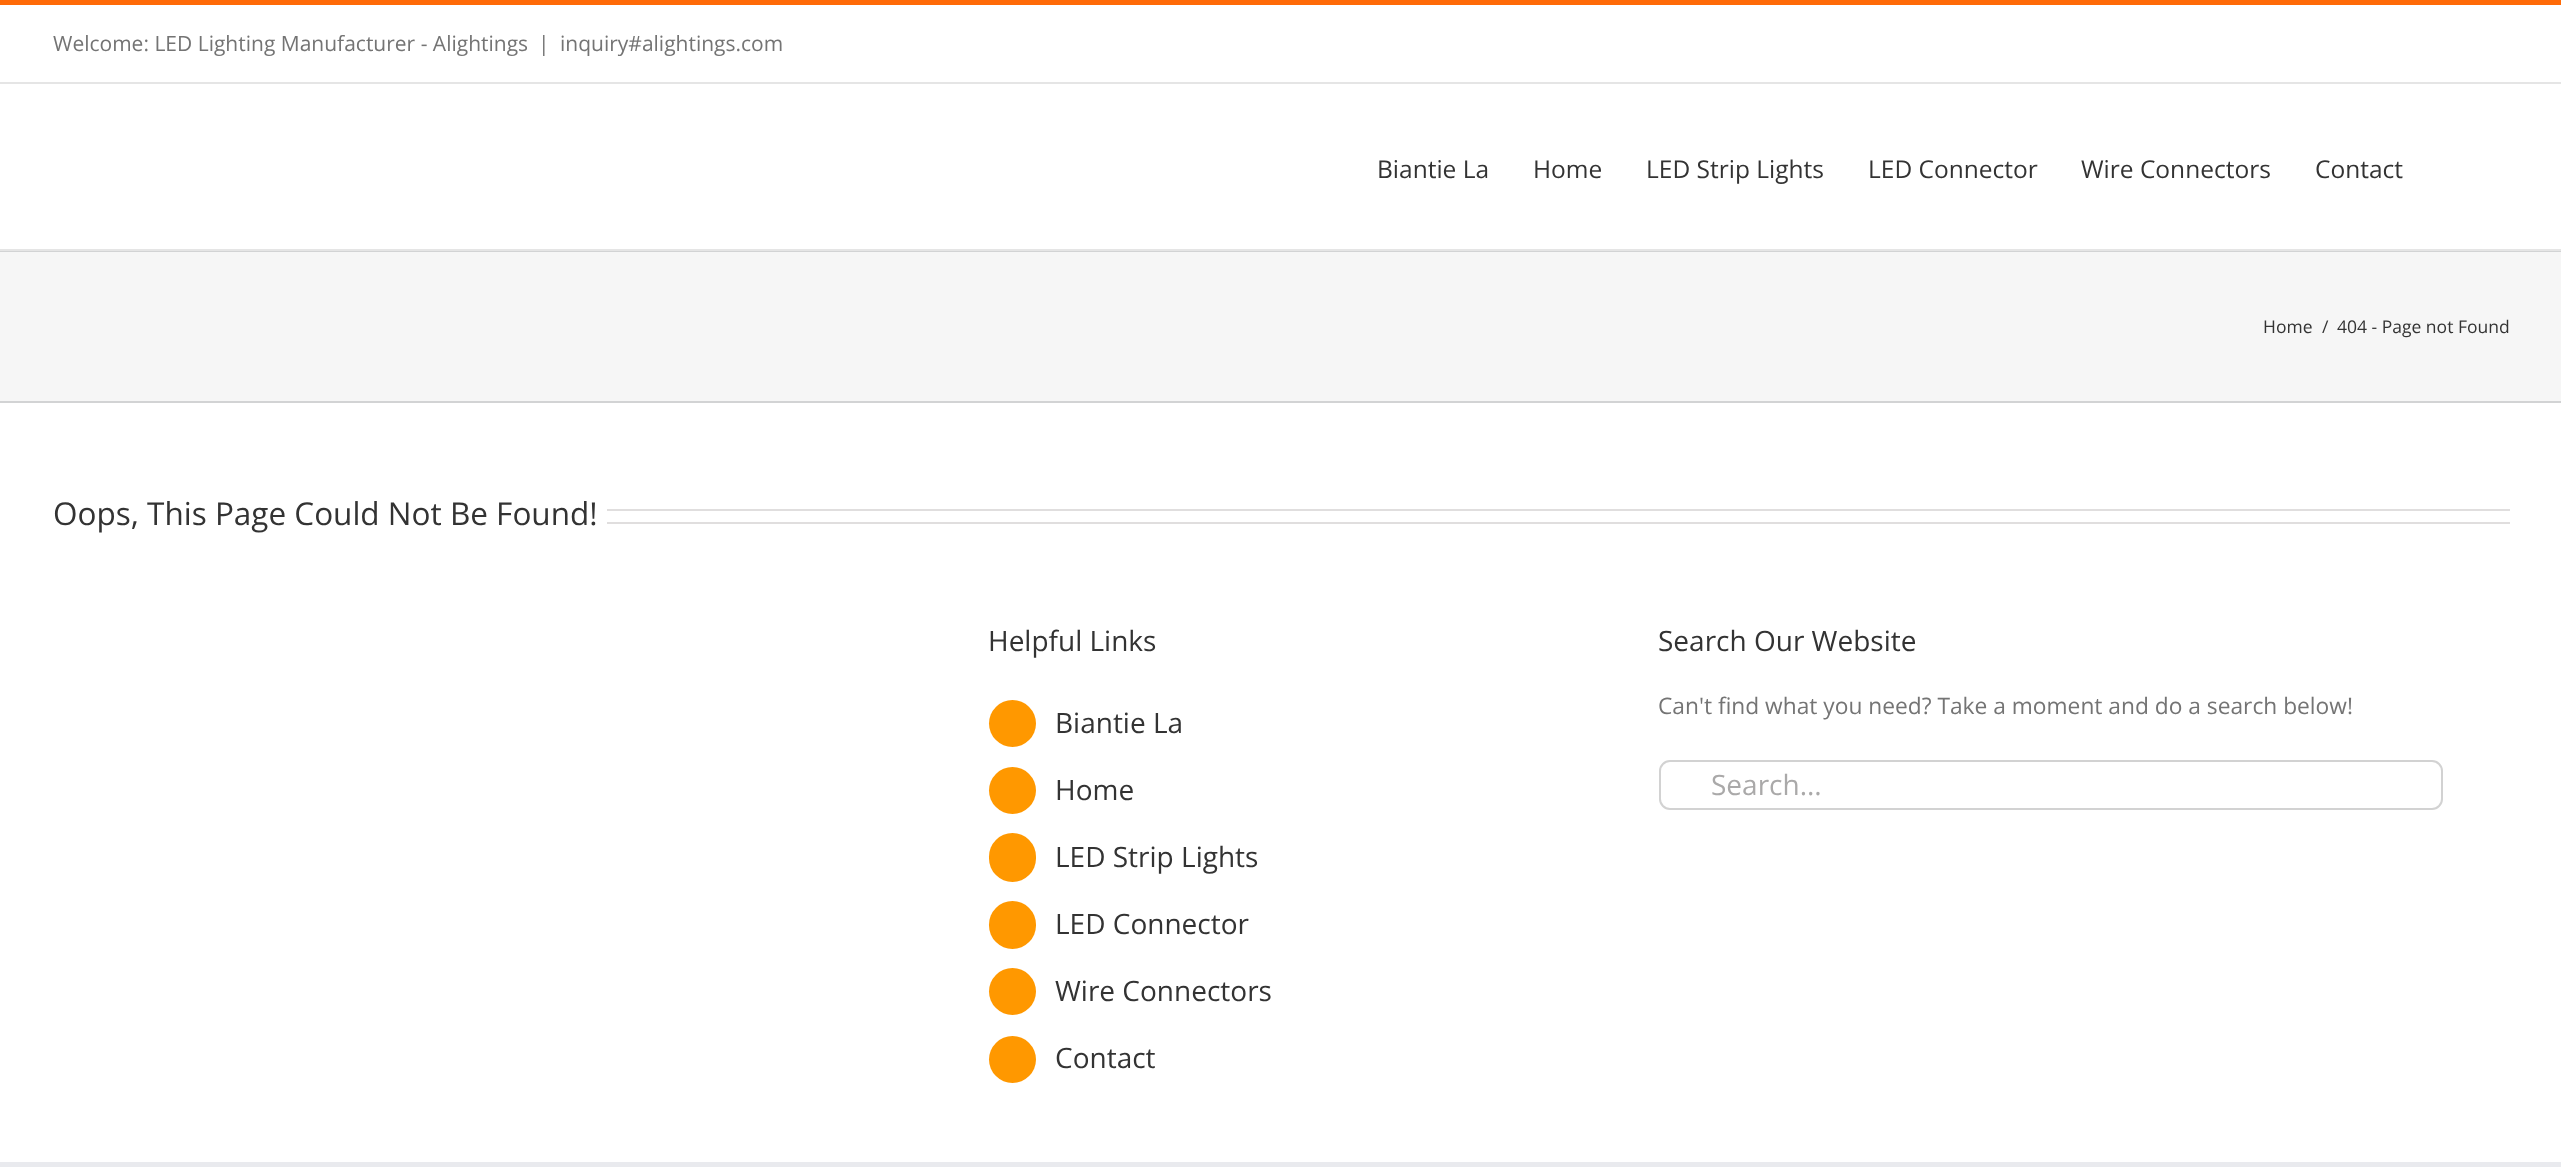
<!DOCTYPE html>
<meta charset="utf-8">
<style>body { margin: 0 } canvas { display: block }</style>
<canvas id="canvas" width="2561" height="1167"></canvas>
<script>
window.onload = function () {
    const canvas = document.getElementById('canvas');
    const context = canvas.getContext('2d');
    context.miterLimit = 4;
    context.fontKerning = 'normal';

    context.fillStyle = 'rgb(255, 255, 255)';
    context.fillRect(0, 0, 2561, 1167);
    context.fillStyle = 'rgb(255, 106, 7)';
    context.fillRect(0, 0, 2561, 5);
    context.fillStyle = 'rgb(229, 229, 229)';
    context.fillRect(0, 82, 2561, 2);
    context.fillRect(0, 249, 2561, 2);
    context.fillStyle = 'rgb(246, 246, 246)';
    context.fillRect(0, 252, 2561, 149);
    context.fillStyle = 'rgb(210, 211, 212)';
    context.fillRect(0, 251, 2561, 1);
    context.fillRect(0, 401, 2561, 2);
    context.fillStyle = 'rgb(224, 222, 222)';
    context.fillRect(607, 509, 1903, 2);
    context.fillRect(607, 522, 1903, 2);
    context.fillStyle = 'rgb(255, 152, 0)';
    context.beginPath();
    context.arc(1012.5, 723.5, 23.5, 0, 2 * Math.PI);
    context.fill();
    context.beginPath();
    context.arc(1012.5, 790.5, 23.5, 0, 2 * Math.PI);
    context.fill();
    context.beginPath();
    context.roundRect(989, 833, 47, 49, 23.5);
    context.fill();
    context.beginPath();
    context.roundRect(989, 901, 47, 48, 23.5);
    context.fill();
    context.beginPath();
    context.arc(1012.5, 991.5, 23.5, 0, 2 * Math.PI);
    context.fill();
    context.beginPath();
    context.arc(1012.5, 1059.5, 23.5, 0, 2 * Math.PI);
    context.fill();
    context.beginPath();
    context.roundRect(1660, 761, 782, 48, 10);
    context.strokeStyle = 'rgb(210, 210, 210)';
    context.lineWidth = 2;
    context.stroke();
    context.fillStyle = 'rgb(233, 234, 238)';
    context.fillRect(0, 1162, 2561, 5);
    context.font = '21px Open Sans';
    context.fillStyle = 'rgb(116, 116, 116)';
    context.fillText('Welcome: LED Lighting Manufacturer - Alightings', 53, 51);
    context.fillText('|', 538, 51);
    context.fillText('inquiry#alightings.com', 560, 51);
    context.font = '24.5px Open Sans';
    context.fillStyle = 'rgb(51, 51, 51)';
    context.fillText('Biantie La', 1377, 178);
    context.fillText('Home', 1533, 178);
    context.fillText('LED Strip Lights', 1646, 178);
    context.fillText('LED Connector', 1868, 178);
    context.fillText('Wire Connectors', 2081, 178);
    context.fillText('Contact', 2315, 178);
    context.font = '17.5px Open Sans';
    context.fillText('Home', 2263, 333);
    context.fillText('/', 2322, 333);
    context.fillText('404 - Page not Found', 2337, 333);
    context.font = '31.5px Open Sans';
    context.fillText('Oops, This Page Could Not Be Found!', 53, 525);
    context.font = '28px Open Sans';
    context.fillText('Helpful Links', 988, 651);
    context.fillText('Biantie La', 1055, 733);
    context.fillText('Home', 1055, 800);
    context.fillText('LED Strip Lights', 1055, 867);
    context.fillText('LED Connector', 1055, 934);
    context.fillText('Wire Connectors', 1055, 1001);
    context.fillText('Contact', 1055, 1068);
    context.fillText('Search Our Website', 1658, 651);
    context.font = '22.75px Open Sans';
    context.fillStyle = 'rgb(116, 116, 116)';
    context.fillText('Can\'t find what you need? Take a moment and do a search below!', 1658, 714);
    context.font = '28px Open Sans';
    context.fillStyle = 'rgb(170, 169, 169)';
    context.fillText('Search...', 1711, 795);
};
</script>
